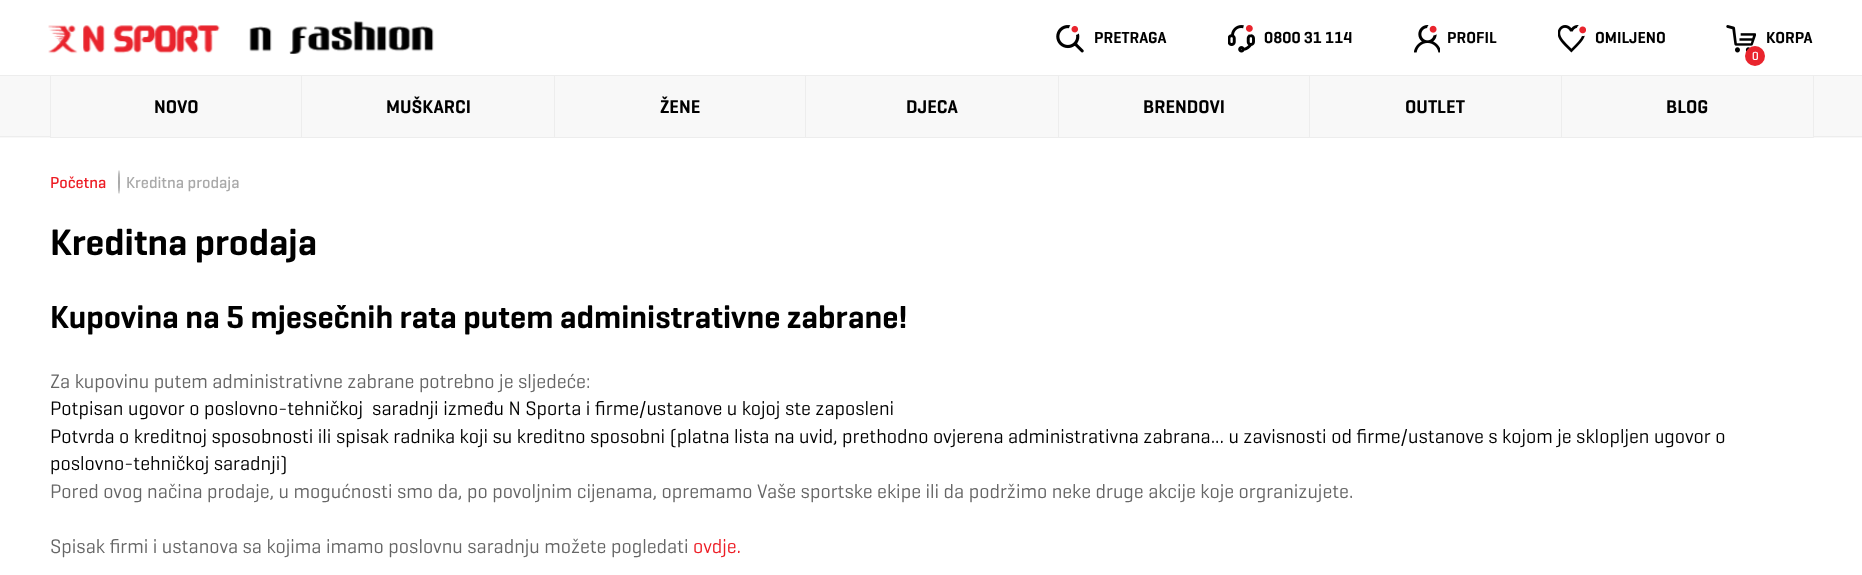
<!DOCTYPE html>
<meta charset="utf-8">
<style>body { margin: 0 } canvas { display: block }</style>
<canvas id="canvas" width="1862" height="575"></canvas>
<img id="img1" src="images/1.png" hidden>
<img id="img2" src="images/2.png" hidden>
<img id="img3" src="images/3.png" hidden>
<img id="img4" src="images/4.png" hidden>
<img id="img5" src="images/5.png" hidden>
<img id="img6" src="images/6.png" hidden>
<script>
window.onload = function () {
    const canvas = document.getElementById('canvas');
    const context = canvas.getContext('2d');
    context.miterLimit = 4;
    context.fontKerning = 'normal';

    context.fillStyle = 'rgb(255, 255, 255)';
    context.fillRect(0, 0, 1862, 575);
    context.drawImage(document.getElementById('img1'), 48, 21, 386, 33);
    context.drawImage(document.getElementById('img2'), 1056, 25, 28, 28);
    context.drawImage(document.getElementById('img3'), 1228, 25, 27, 28);
    context.drawImage(document.getElementById('img4'), 1414, 25, 26, 28);
    context.drawImage(document.getElementById('img5'), 1558, 25, 28, 28);
    context.drawImage(document.getElementById('img6'), 1726, 25, 30, 28);
    context.fillStyle = 'rgb(233, 36, 45)';
    context.beginPath();
    context.arc(1755, 56, 10, 0, 2 * Math.PI);
    context.fill();
    context.fillStyle = 'rgb(248, 248, 248)';
    context.fillRect(0, 76, 1862, 62);
    context.fillStyle = 'rgb(237, 237, 237)';
    context.fillRect(0, 75, 1862, 1);
    context.fillRect(0, 136, 1862, 1);
    context.fillStyle = 'rgb(248, 248, 248)';
    context.fillRect(51, 136, 250, 1);
    context.strokeStyle = 'rgb(237, 237, 237)';
    context.strokeRect(50.5, 75.5, 252, 62);
    context.beginPath();
    context.rect(301.5, 75.5, 253, 62);
    context.fill();
    context.stroke();
    context.fillRect(555, 136, 250, 1);
    context.strokeRect(554.5, 75.5, 251, 62);
    context.fillRect(806, 136, 252, 1);
    context.strokeRect(805.5, 75.5, 253, 62);
    context.fillRect(1059, 136, 250, 1);
    context.strokeRect(1058.5, 75.5, 251, 62);
    context.fillRect(1310, 136, 251, 1);
    context.strokeRect(1309.5, 75.5, 253, 62);
    context.beginPath();
    context.rect(1561.5, 75.5, 252, 62);
    context.fill();
    context.stroke();
    context.fillStyle = 'rgb(169, 169, 169)';
    context.beginPath();
    context.ellipse(119, 182, 1, 12, 0, 0, 2 * Math.PI);
    context.fill();
    context.font = '600 16.25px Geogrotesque';
    context.fillStyle = 'rgb(0, 0, 0)';
    context.fillText('PRETRAGA', 1094, 43);
    context.fillText('0800 31 114', 1264, 43);
    context.fillText('PROFIL', 1447, 43);
    context.fillText('OMILJENO', 1595, 43);
    context.fillText('KORPA', 1766, 43);
    context.font = '500 12px Geogrotesque';
    context.fillStyle = 'rgb(255, 255, 255)';
    context.fillText('0', 1752, 60);
    context.font = '600 18.75px Geogrotesque';
    context.fillStyle = 'rgb(0, 0, 0)';
    context.fillText('NOVO', 154, 113);
    context.fillText('MUŠKARCI', 386, 113);
    context.fillText('ŽENE', 660, 113);
    context.fillText('DJECA', 906, 113);
    context.fillText('BRENDOVI', 1143, 113);
    context.fillText('OUTLET', 1405, 113);
    context.fillText('BLOG', 1666, 113);
    context.font = '500 16.25px Geogrotesque';
    context.fillStyle = 'rgb(237, 28, 36)';
    context.fillText('Početna', 50, 188);
    context.fillStyle = 'rgb(169, 169, 169)';
    context.fillText('Kreditna prodaja', 126, 188);
    context.font = '600 37.5px Geogrotesque';
    context.fillStyle = 'rgb(0, 0, 0)';
    context.fillText('Kreditna prodaja', 50, 255);
    context.font = '600 32.5px Geogrotesque';
    context.fillText('Kupovina na 5 mjesečnih rata putem administrativne zabrane!', 50, 328);
    context.font = '20px Geogrotesque';
    context.fillStyle = 'rgb(102, 102, 102)';
    context.fillText('Za kupovinu putem administrativne zabrane potrebno je sljedeće:', 50, 388);
    context.fillStyle = 'rgb(0, 0, 0)';
    context.fillText('Potpisan ugovor o poslovno-tehničkoj  saradnji između N Sporta i firme/ustanove u kojoj ste zaposleni', 50, 415);
    context.fillText('Potvrda o kreditnoj sposobnosti ili spisak radnika koji su kreditno sposobni (platna lista na uvid, prethodno ovjerena administrativna zabrana... u zavisnosti od firme/ustanove s kojom je sklopljen ugovor o', 50, 443);
    context.fillText('poslovno-tehničkoj saradnji)', 50, 470);
    context.fillStyle = 'rgb(102, 102, 102)';
    context.fillText('Pored ovog načina prodaje, u mogućnosti smo da, po povoljnim cijenama, opremamo Vaše sportske ekipe ili da podržimo neke druge akcije koje orgranizujete.', 50, 498);
    context.fillText('Spisak firmi i ustanova sa kojima imamo poslovnu saradnju možete pogledati', 50, 553);
    context.fillStyle = 'rgb(237, 28, 36)';
    context.fillText('ovdje.', 693, 553);
};
</script>
